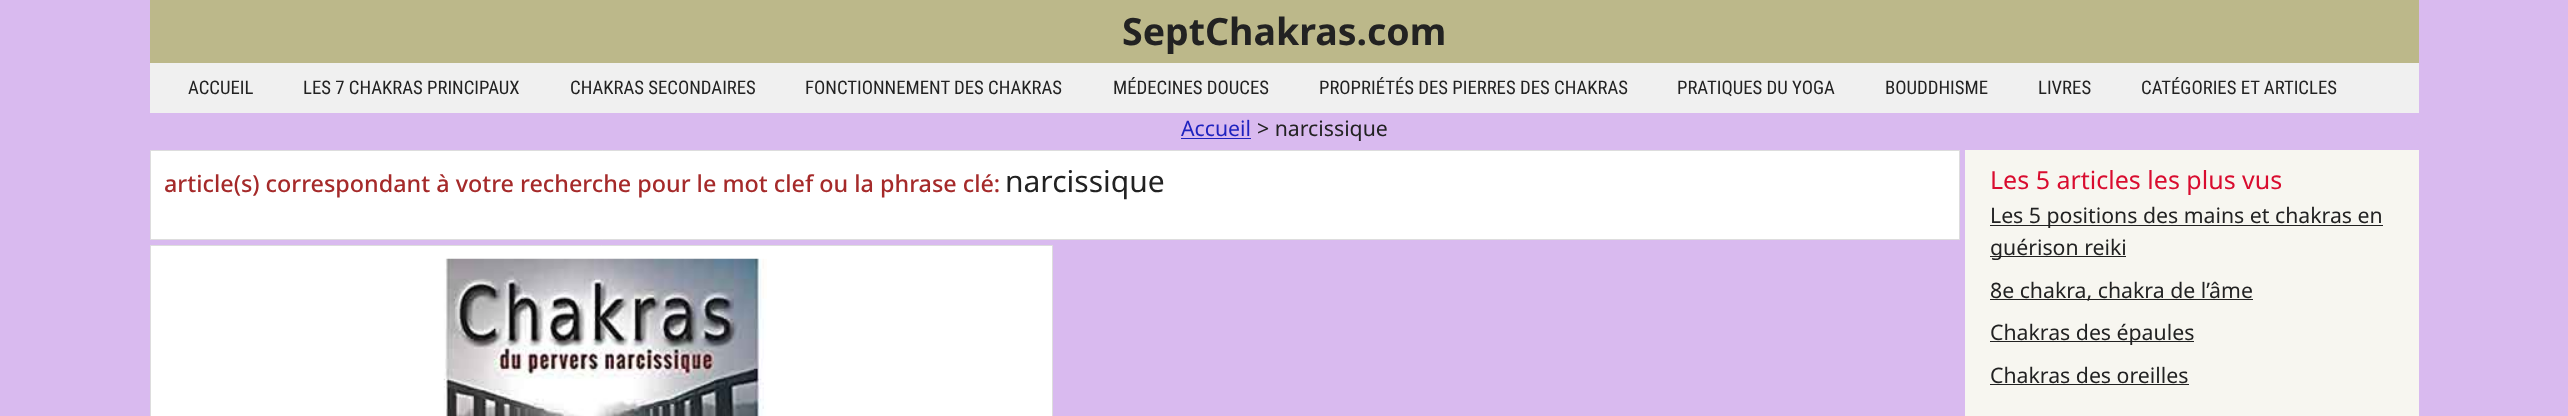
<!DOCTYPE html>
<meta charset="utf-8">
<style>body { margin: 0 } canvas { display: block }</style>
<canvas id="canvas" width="2568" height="416"></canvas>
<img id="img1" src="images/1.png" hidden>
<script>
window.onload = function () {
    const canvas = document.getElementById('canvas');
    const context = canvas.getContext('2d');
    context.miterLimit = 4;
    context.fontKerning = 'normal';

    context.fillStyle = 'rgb(217, 186, 239)';
    context.fillRect(0, 0, 2568, 416);
    context.fillStyle = 'rgb(188, 184, 138)';
    context.fillRect(150, 0, 2269, 63);
    context.fillStyle = 'rgb(240, 240, 240)';
    context.fillRect(150, 63, 2269, 50);
    context.fillStyle = 'rgb(31, 35, 191)';
    context.fillRect(1181, 138, 70, 1);
    context.fillStyle = 'rgb(255, 255, 255)';
    context.beginPath();
    context.rect(150.5, 150.5, 1809, 89);
    context.fill();
    context.strokeStyle = 'rgb(221, 221, 221)';
    context.stroke();
    context.beginPath();
    context.rect(150.5, 245.5, 902, 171);
    context.fill();
    context.stroke();
    context.drawImage(document.getElementById('img1'), 443, 258, 324, 158);
    context.fillStyle = 'rgb(247, 246, 240)';
    context.fillRect(1965, 150, 454, 266);
    context.fillStyle = 'rgb(34, 34, 34)';
    context.fillRect(1990, 225, 393, 1);
    context.fillRect(1990, 256, 136, 1);
    context.fillRect(1990, 299, 263, 1);
    context.fillRect(1990, 341, 204, 1);
    context.fillRect(1990, 384, 199, 1);
    context.font = 'bold 37.5px Noto Sans';
    context.fillText('SeptChakras.com', 1122, 45);
    context.font = '18.75px Roboto Condensed';
    context.fillText('ACCUEIL', 188, 94);
    context.fillText('LES 7 CHAKRAS PRINCIPAUX', 303, 94);
    context.fillText('CHAKRAS SECONDAIRES', 570, 94);
    context.fillText('FONCTIONNEMENT DES CHAKRAS', 805, 94);
    context.fillText('MÉDECINES DOUCES', 1113, 94);
    context.fillText('PROPRIÉTÉS DES PIERRES DES CHAKRAS', 1319, 94);
    context.fillText('PRATIQUES DU YOGA', 1677, 94);
    context.fillText('BOUDDHISME', 1885, 94);
    context.fillText('LIVRES', 2038, 94);
    context.fillText('CATÉGORIES ET ARTICLES', 2141, 94);
    context.font = '21.25px Noto Sans';
    context.fillStyle = 'rgb(31, 35, 191)';
    context.fillText('Accueil', 1181, 136);
    context.fillStyle = 'rgb(34, 34, 34)';
    context.fillText('> narcissique', 1257, 136);
    context.font = '500 23.35px Noto Sans';
    context.fillStyle = 'rgb(165, 42, 42)';
    context.fillText('article(s) correspondant à votre recherche pour le mot clef ou la phrase clé:', 164, 192);
    context.font = '30px Noto Sans';
    context.fillStyle = 'rgb(34, 34, 34)';
    context.fillText('narcissique', 1005, 192);
    context.font = '25px Noto Sans';
    context.fillStyle = 'rgb(217, 12, 47)';
    context.fillText('Les 5 articles les plus vus', 1990, 189);
    context.font = '21.25px Noto Sans';
    context.fillStyle = 'rgb(34, 34, 34)';
    context.fillText('Les 5 positions des mains et chakras en', 1990, 223);
    context.fillText('guérison reiki', 1990, 255);
    context.fillText('8e chakra, chakra de l’âme', 1990, 298);
    context.fillText('Chakras des épaules', 1990, 340);
    context.fillText('Chakras des oreilles', 1990, 383);
};
</script>
